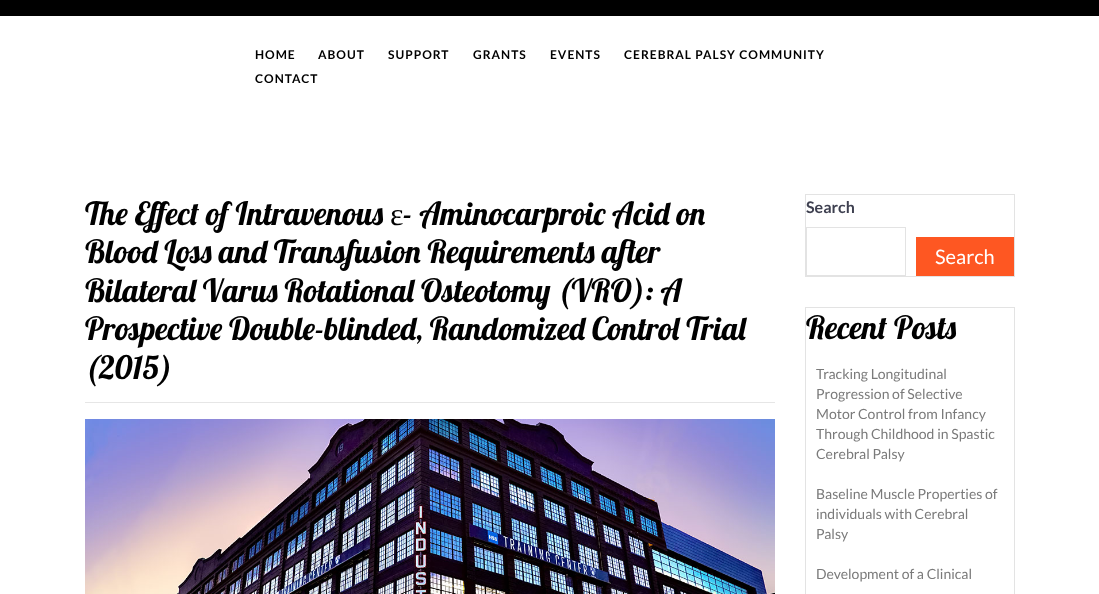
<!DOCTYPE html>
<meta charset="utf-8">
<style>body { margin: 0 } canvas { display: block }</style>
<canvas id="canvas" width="1099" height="594"></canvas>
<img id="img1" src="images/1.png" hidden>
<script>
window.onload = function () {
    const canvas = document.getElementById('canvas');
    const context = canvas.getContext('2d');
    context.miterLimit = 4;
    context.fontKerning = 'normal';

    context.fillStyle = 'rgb(255, 255, 255)';
    context.fillRect(0, 0, 1099, 594);
    context.fillStyle = 'rgb(0, 0, 0)';
    context.fillRect(0, 0, 1099, 16);
    context.fillStyle = 'rgb(230, 230, 230)';
    context.fillRect(85, 402, 690, 1);
    context.drawImage(document.getElementById('img1'), 85, 419, 690, 175);
    context.strokeStyle = 'rgb(227, 227, 227)';
    context.strokeRect(805.5, 194.5, 209, 82);
    context.strokeRect(806.5, 227.5, 99, 48);
    context.fillStyle = 'rgb(254, 87, 34)';
    context.fillRect(916, 237, 98, 39);
    context.strokeRect(805.5, 307.5, 209, 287);
    context.letterSpacing = '1px';
    context.font = 'bold 12px Lato';
    context.fillStyle = 'rgb(0, 0, 0)';
    context.fillText('HOME', 255, 59);
    context.fillText('ABOUT', 318, 59);
    context.fillText('SUPPORT', 388, 59);
    context.fillText('GRANTS', 473, 59);
    context.fillText('EVENTS', 550, 59);
    context.fillText('CEREBRAL PALSY COMMUNITY', 624, 59);
    context.fillText('CONTACT', 255, 83);
    context.letterSpacing = '0px';
    context.font = '32px Lobster';
    context.fillText('The Effect of Intravenous', 85, 225);
    context.font = '32px Liberation Serif';
    context.fillText('ɛ', 390, 225);
    context.font = '32px Lobster';
    context.fillText('- Aminocarproic Acid on', 403, 225);
    context.fillText('Blood Loss and Transfusion Requirements after', 85, 263);
    context.fillText('Bilateral Varus Rotational Osteotomy (VRO): A', 85, 302);
    context.fillText('Prospective Double-blinded, Randomized Control Trial', 85, 340);
    context.fillText('(2015)', 85, 379);
    context.font = 'bold 16px Lato';
    context.fillStyle = 'rgb(62, 64, 80)';
    context.fillText('Search', 806, 213);
    context.font = '20px Lato';
    context.fillStyle = 'rgb(255, 255, 255)';
    context.fillText('Search', 935, 264);
    context.font = '32px Lobster';
    context.fillStyle = 'rgb(0, 0, 0)';
    context.fillText('Recent Posts', 806, 339);
    context.font = '14px Lato';
    context.fillStyle = 'rgb(122, 122, 122)';
    context.fillText('Tracking Longitudinal', 816, 379);
    context.fillText('Progression of Selective', 816, 399);
    context.fillText('Motor Control from Infancy', 816, 419);
    context.fillText('Through Childhood in Spastic', 816, 439);
    context.fillText('Cerebral Palsy', 816, 459);
    context.fillText('Baseline Muscle Properties of', 816, 499);
    context.fillText('individuals with Cerebral', 816, 519);
    context.fillText('Palsy', 816, 539);
    context.fillText('Development of a Clinical', 816, 579);
};
</script>
